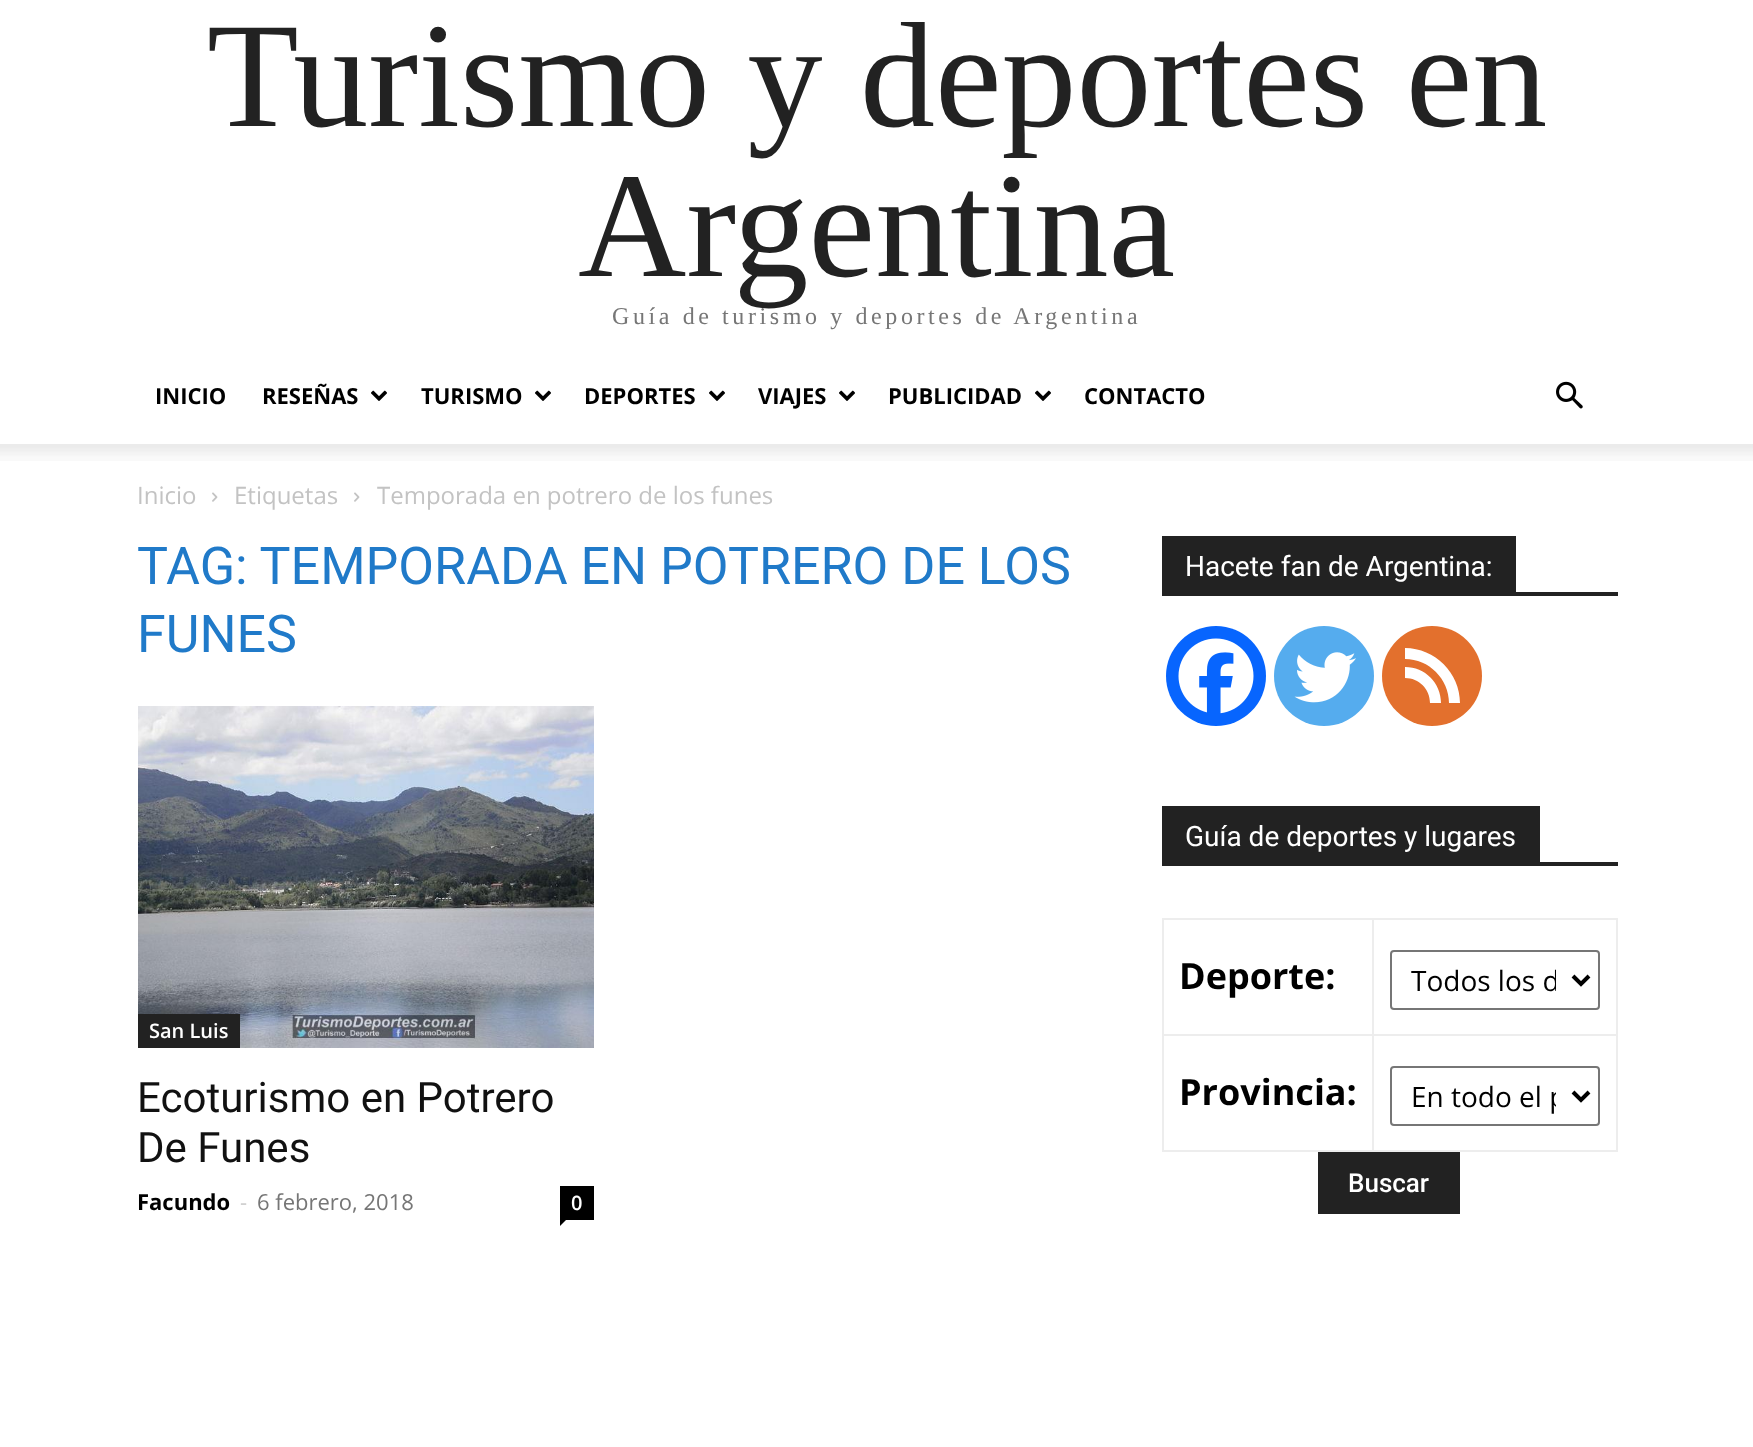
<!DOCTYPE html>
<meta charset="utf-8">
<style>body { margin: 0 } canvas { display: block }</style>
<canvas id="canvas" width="1753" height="1447"></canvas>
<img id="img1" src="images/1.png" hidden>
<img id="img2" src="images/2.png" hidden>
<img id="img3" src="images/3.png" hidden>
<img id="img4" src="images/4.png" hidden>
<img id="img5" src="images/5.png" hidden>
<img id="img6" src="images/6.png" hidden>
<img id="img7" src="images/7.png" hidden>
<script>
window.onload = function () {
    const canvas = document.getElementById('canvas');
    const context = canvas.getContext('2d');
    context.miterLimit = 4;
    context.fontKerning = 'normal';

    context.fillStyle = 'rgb(255, 255, 255)';
    context.fillRect(0, 0, 1753, 1447);
    context.drawImage(document.getElementById('img1'), 371, 390, 16, 11);
    context.drawImage(document.getElementById('img1'), 535, 390, 16, 11);
    context.drawImage(document.getElementById('img1'), 709, 390, 16, 11);
    context.drawImage(document.getElementById('img1'), 839, 390, 16, 11);
    context.drawImage(document.getElementById('img1'), 1035, 390, 16, 11);
    context.drawImage(document.getElementById('img2'), 1556, 381, 27, 28);
    context.drawImage(document.getElementById('img3'), 0, 444, 1753, 17);
    context.drawImage(document.getElementById('img4'), 212, 492, 6, 10);
    context.drawImage(document.getElementById('img4'), 354, 492, 6, 10);
    context.drawImage(document.getElementById('img5'), 138, 706, 456, 342);
    context.fillStyle = 'rgb(34, 34, 34)';
    context.fillRect(138, 1014, 102, 34);
    context.fillStyle = 'rgb(0, 0, 0)';
    context.fillRect(560, 1186, 34, 34);
    context.beginPath();
    context.moveTo(560, 1220);
    context.lineTo(566, 1220);
    context.lineTo(560, 1226);
    context.closePath();
    context.fill();
    context.fillStyle = 'rgb(34, 34, 34)';
    context.fillRect(1162, 592, 456, 4);
    context.fillRect(1162, 536, 354, 56);
    context.fillStyle = 'rgb(7, 101, 254)';
    context.beginPath();
    context.arc(1216, 676, 50, 0, 2 * Math.PI);
    context.fill();
    context.drawImage(document.getElementById('img6'), 1178, 638, 76, 76);
    context.fillStyle = 'rgb(85, 172, 238)';
    context.beginPath();
    context.arc(1324, 676, 50, 0, 2 * Math.PI);
    context.fill();
    context.drawImage(document.getElementById('img7'), 1294, 652, 62, 51);
    context.fillStyle = 'rgb(227, 112, 45)';
    context.beginPath();
    context.arc(1432, 676, 50, 0, 2 * Math.PI);
    context.fill();
    context.fillStyle = 'rgb(255, 255, 255)';
    context.beginPath();
    context.moveTo(1405, 678);
    context.bezierCurveTo(1419, 678, 1430, 689, 1430, 703);
    context.lineTo(1441, 703);
    context.bezierCurveTo(1441, 683, 1425, 667, 1405, 667);
    context.closePath();
    context.moveTo(1405, 659);
    context.bezierCurveTo(1429, 659, 1449, 679, 1449, 703);
    context.lineTo(1460, 703);
    context.bezierCurveTo(1460, 673, 1435, 648, 1405, 648);
    context.closePath();
    context.fill();
    context.fillStyle = 'rgb(34, 34, 34)';
    context.fillRect(1162, 862, 456, 4);
    context.fillRect(1162, 806, 378, 56);
    context.fillStyle = 'rgb(237, 237, 237)';
    context.fillRect(1372, 918, 246, 2);
    context.fillRect(1372, 1034, 246, 2);
    context.fillRect(1616, 1034, 2, 118);
    context.fillRect(1372, 1150, 246, 2);
    context.fillRect(1372, 1034, 2, 118);
    context.fillRect(1162, 1034, 212, 2);
    context.fillRect(1372, 918, 2, 118);
    context.fillRect(1162, 918, 212, 2);
    context.fillRect(1162, 1150, 212, 2);
    context.fillRect(1162, 1034, 2, 118);
    context.fillRect(1162, 918, 2, 118);
    context.fillRect(1616, 918, 2, 118);
    context.beginPath();
    context.roundRect(1391, 951, 208, 58, 3);
    context.strokeStyle = 'rgb(118, 118, 118)';
    context.lineWidth = 2;
    context.stroke();
    context.beginPath();
    context.moveTo(1573, 976);
    context.lineTo(1581, 984);
    context.lineTo(1589, 976);
    context.strokeStyle = 'rgb(0, 0, 0)';
    context.lineWidth = 4;
    context.stroke();
    context.beginPath();
    context.roundRect(1391, 1067, 208, 58, 3);
    context.strokeStyle = 'rgb(118, 118, 118)';
    context.lineWidth = 2;
    context.stroke();
    context.beginPath();
    context.moveTo(1573, 1092);
    context.lineTo(1581, 1100);
    context.lineTo(1589, 1092);
    context.strokeStyle = 'rgb(0, 0, 0)';
    context.lineWidth = 4;
    context.stroke();
    context.fillStyle = 'rgb(34, 34, 34)';
    context.fillRect(1318, 1152, 142, 62);
    context.font = '150px Liberation Serif';
    context.fillText('Turismo y deportes en', 207, 126);
    context.fillText('Argentina', 578, 276);
    context.letterSpacing = '3.6px';
    context.font = '24px Liberation Serif';
    context.fillStyle = 'rgb(118, 118, 118)';
    context.fillText('Guía de turismo y deportes de Argentina', 612, 324);
    context.letterSpacing = '0px';
    context.font = 'bold 22px Open Sans';
    context.fillStyle = 'rgb(0, 0, 0)';
    context.fillText('INICIO', 155, 404);
    context.fillText('RESEÑAS', 262, 404);
    context.fillText('TURISMO', 421, 404);
    context.fillText('DEPORTES', 584, 404);
    context.fillText('VIAJES', 758, 404);
    context.fillText('PUBLICIDAD', 888, 404);
    context.fillText('CONTACTO', 1084, 404);
    context.font = '24px Open Sans';
    context.fillStyle = 'rgb(195, 195, 195)';
    context.fillText('Inicio', 137, 504);
    context.fillText('Etiquetas', 234, 504);
    context.fillText('Temporada en potrero de los funes', 377, 504);
    context.font = '52px Roboto';
    context.fillStyle = 'rgb(32, 122, 201)';
    context.fillText('TAG: TEMPORADA EN POTRERO DE LOS', 137, 584);
    context.fillText('FUNES', 137, 652);
    context.font = '600 20px Open Sans';
    context.fillStyle = 'rgb(255, 255, 255)';
    context.fillText('San Luis', 149, 1038);
    context.font = '42px Roboto';
    context.fillStyle = 'rgb(17, 17, 17)';
    context.fillText('Ecoturismo en Potrero', 137, 1112);
    context.fillText('De Funes', 137, 1162);
    context.font = 'bold 22px Open Sans';
    context.fillStyle = 'rgb(0, 0, 0)';
    context.fillText('Facundo', 137, 1210);
    context.font = '22px Open Sans';
    context.fillStyle = 'rgb(204, 204, 204)';
    context.fillText('-', 240, 1210);
    context.fillStyle = 'rgb(118, 118, 118)';
    context.fillText('6 febrero, 2018', 257, 1210);
    context.font = '600 20px Open Sans';
    context.fillStyle = 'rgb(255, 255, 255)';
    context.fillText('0', 571, 1210);
    context.font = '28px Roboto';
    context.fillText('Hacete fan de Argentina:', 1185, 576);
    context.fillText('Guía de deportes y lugares', 1185, 846);
    context.font = 'bold 36px Open Sans';
    context.fillStyle = 'rgb(0, 0, 0)';
    context.fillText('Deporte:', 1179, 989);
    context.save();
    context.beginPath();
    context.rect(1410, 960, 146, 42);
    context.clip();
    context.font = '28px Open Sans';
    context.fillText('Todos los d', 1411, 991);
    context.restore();
    context.fillText('Provincia:', 1179, 1105);
    context.save();
    context.beginPath();
    context.rect(1410, 1076, 146, 42);
    context.clip();
    context.font = '28px Open Sans';
    context.fillText('En todo el p', 1411, 1107);
    context.restore();
    context.font = '500 26px Roboto';
    context.fillStyle = 'rgb(255, 255, 255)';
    context.fillText('Buscar', 1348, 1192);
};
</script>
